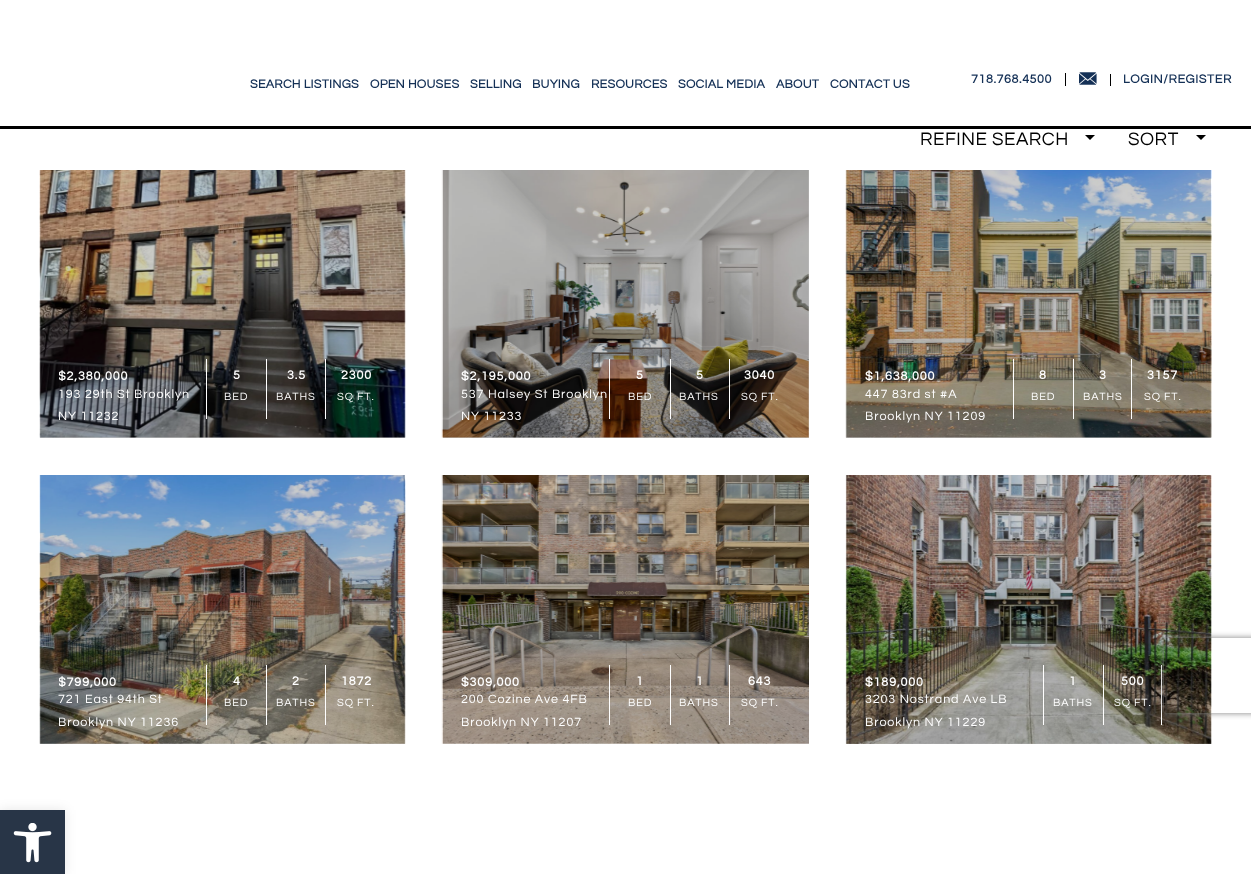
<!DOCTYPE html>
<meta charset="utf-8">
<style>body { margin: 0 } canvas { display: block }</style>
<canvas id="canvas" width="1251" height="874"></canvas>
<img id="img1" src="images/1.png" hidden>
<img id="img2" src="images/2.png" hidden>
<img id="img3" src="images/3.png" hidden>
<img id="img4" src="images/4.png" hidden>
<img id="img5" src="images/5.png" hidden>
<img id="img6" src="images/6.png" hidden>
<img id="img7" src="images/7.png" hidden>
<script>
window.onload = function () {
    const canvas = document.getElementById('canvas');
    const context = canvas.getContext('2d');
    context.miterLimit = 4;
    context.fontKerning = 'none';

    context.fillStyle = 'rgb(255, 255, 255)';
    context.fillRect(0, 0, 1251, 874);
    context.fillStyle = 'rgb(204, 204, 204)';
    context.fillRect(846, 475, 365, 269);
    context.fillRect(40, 475, 365, 269);
    context.fillRect(846, 170, 365, 268);
    context.fillRect(443, 170, 366, 268);
    context.fillRect(40, 170, 365, 268);
    context.fillStyle = 'rgb(0, 0, 0)';
    context.fillRect(0, 126, 1251, 3);
    context.fillRect(1065, 73, 1, 13);
    context.fillRect(1110, 74, 1, 12);
    context.beginPath();
    context.moveTo(1085, 135);
    context.lineTo(1095, 135);
    context.lineTo(1090, 140);
    context.closePath();
    context.fill();
    context.beginPath();
    context.moveTo(1196, 135);
    context.lineTo(1206, 135);
    context.lineTo(1201, 140);
    context.closePath();
    context.fill();
    context.drawImage(document.getElementById('img1'), 39, 170, 367, 268);
    context.fillStyle = 'rgb(255, 255, 255)';
    context.fillRect(206, 359, 1, 60);
    context.fillRect(325, 359, 1, 60);
    context.fillRect(266, 359, 1, 60);
    context.drawImage(document.getElementById('img2'), 441, 170, 368, 268);
    context.fillRect(609, 359, 1, 60);
    context.fillRect(729, 359, 1, 60);
    context.fillRect(670, 359, 1, 60);
    context.drawImage(document.getElementById('img3'), 845, 170, 367, 268);
    context.fillRect(1013, 359, 1, 60);
    context.fillRect(1131, 359, 1, 60);
    context.fillRect(1073, 359, 1, 60);
    context.drawImage(document.getElementById('img4'), 39, 475, 367, 269);
    context.fillRect(206, 665, 1, 60);
    context.fillRect(325, 665, 1, 60);
    context.fillRect(266, 665, 1, 60);
    context.drawImage(document.getElementById('img5'), 441, 475, 368, 269);
    context.fillRect(609, 665, 1, 60);
    context.fillRect(729, 665, 1, 60);
    context.fillRect(670, 665, 1, 60);
    context.drawImage(document.getElementById('img6'), 845, 475, 367, 269);
    context.fillRect(1043, 665, 1, 60);
    context.fillRect(1161, 665, 1, 60);
    context.fillRect(1103, 665, 1, 60);
    context.save();
    context.beginPath();
    context.moveTo(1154, 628);
    context.lineTo(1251, 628);
    context.lineTo(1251, 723);
    context.lineTo(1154, 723);
    context.closePath();
    context.moveTo(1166.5, 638);
    context.lineTo(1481.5, 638);
    context.bezierCurveTo(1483, 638, 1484, 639, 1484, 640.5);
    context.lineTo(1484, 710.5);
    context.bezierCurveTo(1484, 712, 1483, 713, 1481.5, 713);
    context.lineTo(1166.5, 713);
    context.bezierCurveTo(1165, 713, 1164, 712, 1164, 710.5);
    context.lineTo(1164, 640.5);
    context.bezierCurveTo(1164, 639, 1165, 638, 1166.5, 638);
    context.closePath();
    context.clip('evenodd');
    context.fillStyle = 'rgb(128, 128, 128)';
    context.filter = 'blur(3px)';
    context.beginPath();
    context.roundRect(1164, 638, 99, 75, 2.5);
    context.fill();
    context.filter = 'none';
    context.restore();
    context.fillStyle = 'rgba(0, 0, 0, 0.1)';
    context.filter = 'blur(6px)';
    context.beginPath();
    context.rect(0, 810, 65, 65);
    context.fill();
    context.filter = 'none';
    context.fillStyle = 'rgb(40, 53, 71)';
    context.fillRect(0, 810, 65, 64);
    context.drawImage(document.getElementById('img7'), 13, 823, 39, 40);
    context.letterSpacing = '0.25px';
    context.font = 'bold 12.5px Questrial';
    context.fillStyle = 'rgb(20, 48, 86)';
    context.fillText('SEARCH LISTINGS', 250, 88);
    context.fillText('OPEN HOUSES', 370, 88);
    context.fillText('SELLING', 470, 88);
    context.fillText('BUYING', 532, 88);
    context.fillText('RESOURCES', 591, 88);
    context.fillText('SOCIAL MEDIA', 678, 88);
    context.fillText('ABOUT', 776, 88);
    context.fillText('CONTACT US', 830, 88);
    context.letterSpacing = '0.6px';
    context.fillText('718.768.4500', 971, 83);
    context.font = '12.5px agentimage';
    context.fillText('򰄢', 1079, 84);
    context.font = 'bold 12.5px Questrial';
    context.fillText('LOGIN/REGISTER', 1123, 83);
    context.letterSpacing = '0.5px';
    context.font = '18.75px Questrial';
    context.fillStyle = 'rgb(0, 0, 0)';
    context.fillText('REFINE SEARCH', 920, 145);
    context.fillText('SORT', 1128, 145);
    context.save();
    context.beginPath();
    context.rect(59, 370, 147, 13);
    context.clip();
    context.letterSpacing = '0.9px';
    context.font = 'bold 12.5px Questrial';
    context.fillStyle = 'rgb(255, 255, 255)';
    context.fillText('$2,380,000', 58, 380);
    context.restore();
    context.letterSpacing = '0.9px';
    context.font = '12.5px Questrial';
    context.fillStyle = 'rgb(255, 255, 255)';
    context.fillText('193 29th St Brooklyn', 58, 398);
    context.fillText('NY 11232', 58, 420);
    context.font = 'bold 12.5px Questrial';
    context.fillText('5', 233, 379);
    context.font = '11px Questrial';
    context.fillText('BED', 224, 400);
    context.font = 'bold 12.5px Questrial';
    context.fillText('3.5', 287, 379);
    context.font = '11px Questrial';
    context.fillText('BATHS', 276, 400);
    context.font = 'bold 12.5px Questrial';
    context.fillText('2300', 341, 379);
    context.font = '11px Questrial';
    context.fillText('SQ FT.', 337, 400);
    context.font = 'bold 12.5px Questrial';
    context.fillText('$2,195,000', 461, 380);
    context.font = '12.5px Questrial';
    context.fillText('537 Halsey St Brooklyn', 461, 398);
    context.fillText('NY 11233', 461, 420);
    context.font = 'bold 12.5px Questrial';
    context.fillText('5', 636, 379);
    context.font = '11px Questrial';
    context.fillText('BED', 628, 400);
    context.font = 'bold 12.5px Questrial';
    context.fillText('5', 696, 379);
    context.font = '11px Questrial';
    context.fillText('BATHS', 679, 400);
    context.font = 'bold 12.5px Questrial';
    context.fillText('3040', 744, 379);
    context.font = '11px Questrial';
    context.fillText('SQ FT.', 741, 400);
    context.font = 'bold 12.5px Questrial';
    context.fillText('$1,638,000', 865, 380);
    context.font = '12.5px Questrial';
    context.fillText('447 83rd st #A', 865, 398);
    context.fillText('Brooklyn NY 11209', 865, 420);
    context.font = 'bold 12.5px Questrial';
    context.fillText('8', 1039, 379);
    context.font = '11px Questrial';
    context.fillText('BED', 1031, 400);
    context.font = 'bold 12.5px Questrial';
    context.fillText('3', 1099, 379);
    context.font = '11px Questrial';
    context.fillText('BATHS', 1083, 400);
    context.font = 'bold 12.5px Questrial';
    context.fillText('3157', 1147, 379);
    context.font = '11px Questrial';
    context.fillText('SQ FT.', 1144, 400);
    context.save();
    context.beginPath();
    context.rect(59, 676, 147, 13);
    context.clip();
    context.font = 'bold 12.5px Questrial';
    context.fillText('$799,000', 58, 686);
    context.restore();
    context.font = '12.5px Questrial';
    context.fillText('721 East 94th St', 58, 703);
    context.fillText('Brooklyn NY 11236', 58, 726);
    context.font = 'bold 12.5px Questrial';
    context.fillText('4', 233, 685);
    context.font = '11px Questrial';
    context.fillText('BED', 224, 706);
    context.font = 'bold 12.5px Questrial';
    context.fillText('2', 292, 685);
    context.font = '11px Questrial';
    context.fillText('BATHS', 276, 706);
    context.font = 'bold 12.5px Questrial';
    context.fillText('1872', 341, 685);
    context.font = '11px Questrial';
    context.fillText('SQ FT.', 337, 706);
    context.font = 'bold 12.5px Questrial';
    context.fillText('$309,000', 461, 686);
    context.font = '12.5px Questrial';
    context.fillText('200 Cozine Ave 4FB', 461, 703);
    context.fillText('Brooklyn NY 11207', 461, 726);
    context.font = 'bold 12.5px Questrial';
    context.fillText('1', 636, 685);
    context.font = '11px Questrial';
    context.fillText('BED', 628, 706);
    context.font = 'bold 12.5px Questrial';
    context.fillText('1', 696, 685);
    context.font = '11px Questrial';
    context.fillText('BATHS', 679, 706);
    context.font = 'bold 12.5px Questrial';
    context.fillText('643', 748, 685);
    context.font = '11px Questrial';
    context.fillText('SQ FT.', 741, 706);
    context.font = 'bold 12.5px Questrial';
    context.fillText('$189,000', 865, 686);
    context.font = '12.5px Questrial';
    context.fillText('3203 Nostrand Ave LB', 865, 703);
    context.fillText('Brooklyn NY 11229', 865, 726);
    context.font = 'bold 12.5px Questrial';
    context.fillText('1', 1069, 685);
    context.font = '11px Questrial';
    context.fillText('BATHS', 1053, 706);
    context.font = 'bold 12.5px Questrial';
    context.fillText('500', 1121, 685);
    context.font = '11px Questrial';
    context.fillText('SQ FT.', 1114, 706);
};
</script>
